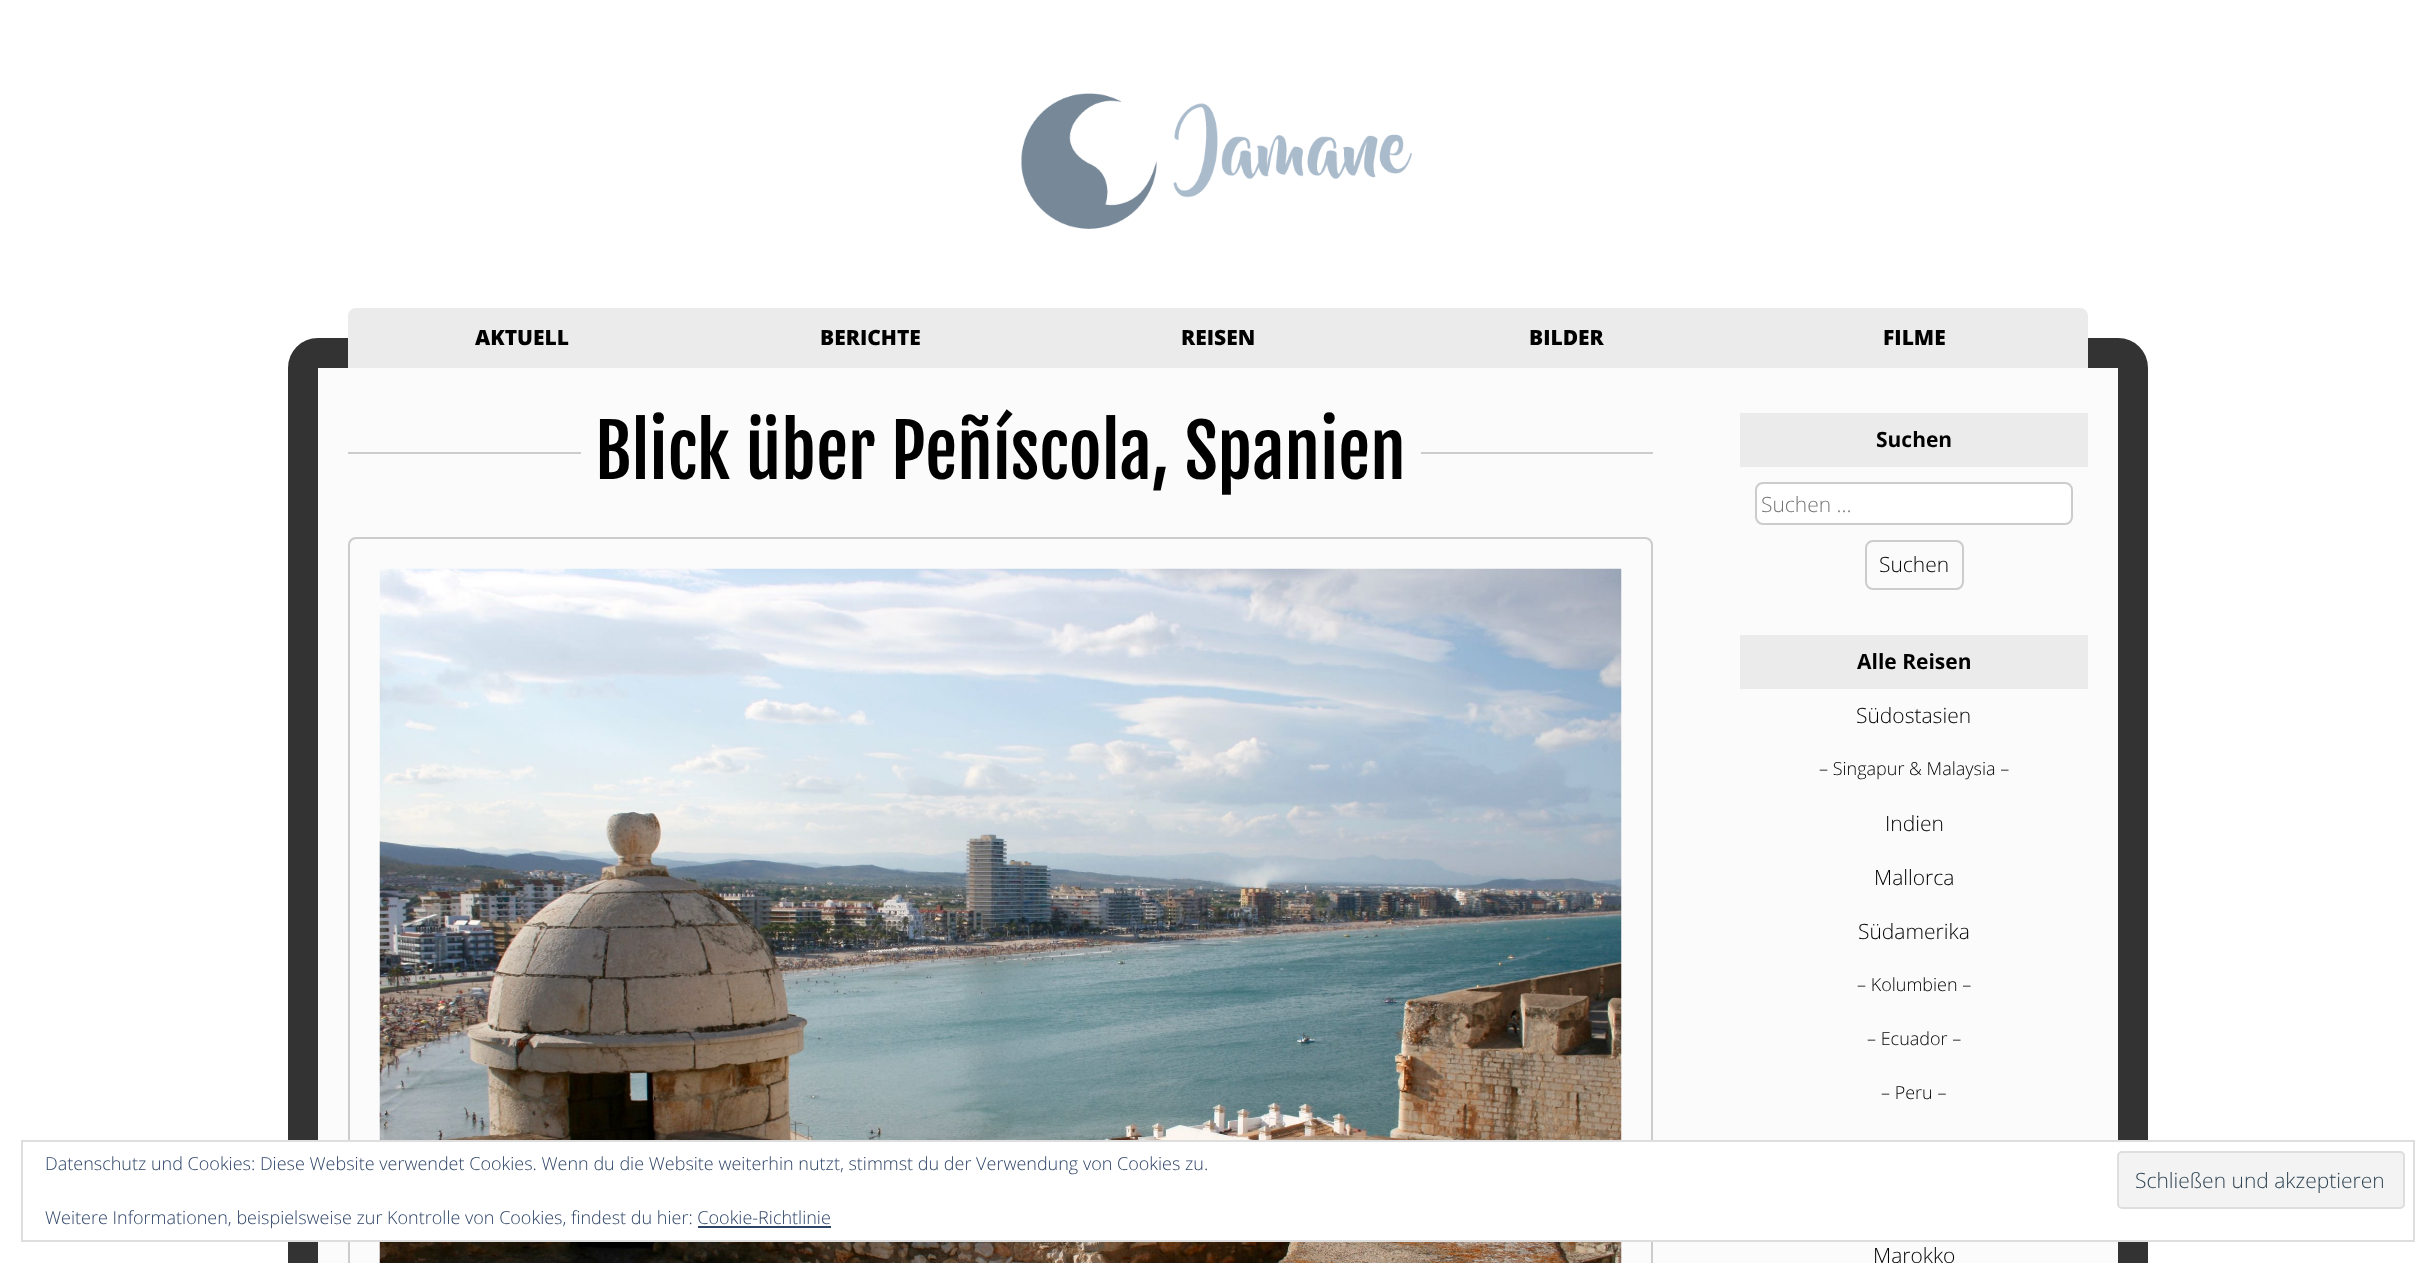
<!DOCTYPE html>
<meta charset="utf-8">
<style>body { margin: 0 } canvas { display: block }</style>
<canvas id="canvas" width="2435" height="1263"></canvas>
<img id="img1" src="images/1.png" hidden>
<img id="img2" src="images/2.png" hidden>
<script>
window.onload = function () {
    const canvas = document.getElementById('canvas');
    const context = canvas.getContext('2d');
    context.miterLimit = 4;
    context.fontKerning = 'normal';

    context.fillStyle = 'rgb(255, 255, 255)';
    context.fillRect(0, 0, 2435, 1263);
    context.drawImage(document.getElementById('img1'), 1021, 93, 392, 136);
    context.fillStyle = 'rgb(251, 251, 251)';
    context.beginPath();
    context.moveTo(318, 353);
    context.lineTo(2118, 353);
    context.bezierCurveTo(2126.5, 353, 2133, 359.5, 2133, 368);
    context.lineTo(2133, 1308);
    context.lineTo(303, 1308);
    context.lineTo(303, 368);
    context.bezierCurveTo(303, 359.5, 309.5, 353, 318, 353);
    context.closePath();
    context.fill();
    context.strokeStyle = 'rgb(51, 51, 51)';
    context.lineWidth = 30;
    context.stroke();
    context.fillStyle = 'rgb(235, 235, 235)';
    context.beginPath();
    context.roundRect(348, 308, 348, 60, [8, 0, 0, 0]);
    context.fill();
    context.fillRect(696, 308, 1044, 60);
    context.beginPath();
    context.roundRect(1740, 308, 348, 60, [0, 8, 0, 0]);
    context.fill();
    context.fillStyle = 'rgb(204, 204, 204)';
    context.fillRect(348, 452, 233, 2);
    context.fillRect(1421, 452, 232, 2);
    context.beginPath();
    context.roundRect(349, 538, 1303, 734, 7);
    context.strokeStyle = 'rgb(204, 204, 204)';
    context.lineWidth = 2;
    context.stroke();
    context.drawImage(document.getElementById('img2'), 379, 568, 1243, 695);
    context.fillStyle = 'rgb(235, 235, 235)';
    context.fillRect(1740, 413, 348, 54);
    context.fillStyle = 'rgb(255, 255, 255)';
    context.beginPath();
    context.roundRect(1756, 483, 316, 41, 7);
    context.fill();
    context.stroke();
    context.beginPath();
    context.roundRect(1866, 541, 97, 48, 7);
    context.stroke();
    context.fillStyle = 'rgb(235, 235, 235)';
    context.fillRect(1740, 635, 348, 54);
    context.fillStyle = 'rgb(255, 255, 255)';
    context.fillRect(288, 1142, 1860, 98);
    context.strokeStyle = 'rgb(222, 222, 222)';
    context.strokeRect(22, 1141, 2392, 100);
    context.fillStyle = 'rgb(243, 243, 243)';
    context.beginPath();
    context.roundRect(2118, 1152, 286, 56, 4);
    context.fill();
    context.stroke();
    context.fillStyle = 'rgb(46, 68, 103)';
    context.fillRect(698, 1226, 133, 2);
    context.font = '800 21px Open Sans';
    context.fillStyle = 'rgb(0, 0, 0)';
    context.fillText('AKTUELL', 475, 345);
    context.fillText('BERICHTE', 820, 345);
    context.fillText('REISEN', 1181, 345);
    context.fillText('BILDER', 1529, 345);
    context.fillText('FILME', 1883, 345);
    context.font = '72px Fjalla One';
    context.fillText('Blick über Peñíscola, Spanien', 595, 479);
    context.font = 'bold 21px Open Sans';
    context.fillText('Suchen', 1876, 447);
    context.font = '300 21px Open Sans';
    context.fillStyle = 'rgb(117, 117, 117)';
    context.fillText('Suchen …', 1761, 512);
    context.fillStyle = 'rgb(0, 0, 0)';
    context.fillText('Suchen', 1879, 572);
    context.font = 'bold 21px Open Sans';
    context.fillText('Alle Reisen', 1857, 669);
    context.font = '300 21px Open Sans';
    context.fillText('Südostasien', 1856, 723);
    context.font = '300 18px Open Sans';
    context.fillText('– Singapur & Malaysia –', 1819, 775);
    context.font = '300 21px Open Sans';
    context.fillText('Indien', 1885, 831);
    context.fillText('Mallorca', 1874, 885);
    context.fillText('Südamerika', 1858, 939);
    context.font = '300 18px Open Sans';
    context.fillText('– Kolumbien –', 1857, 991);
    context.fillText('– Ecuador –', 1867, 1045);
    context.fillText('– Peru –', 1881, 1099);
    context.font = '300 21px Open Sans';
    context.fillText('Marokko', 1873, 1263);
    context.font = '300 18px Open Sans';
    context.fillStyle = 'rgb(46, 68, 103)';
    context.fillText('Datenschutz und Cookies: Diese Website verwendet Cookies. Wenn du die Website weiterhin nutzt, stimmst du der Verwendung von Cookies zu.', 45, 1170);
    context.font = '300 21px Open Sans';
    context.fillStyle = 'rgb(46, 68, 83)';
    context.fillText('Schließen und akzeptieren', 2135, 1188);
    context.font = '300 18px Open Sans';
    context.fillStyle = 'rgb(46, 68, 103)';
    context.fillText('Weitere Informationen, beispielsweise zur Kontrolle von Cookies, findest du hier: Cookie-Richtlinie', 45, 1224);
};
</script>
